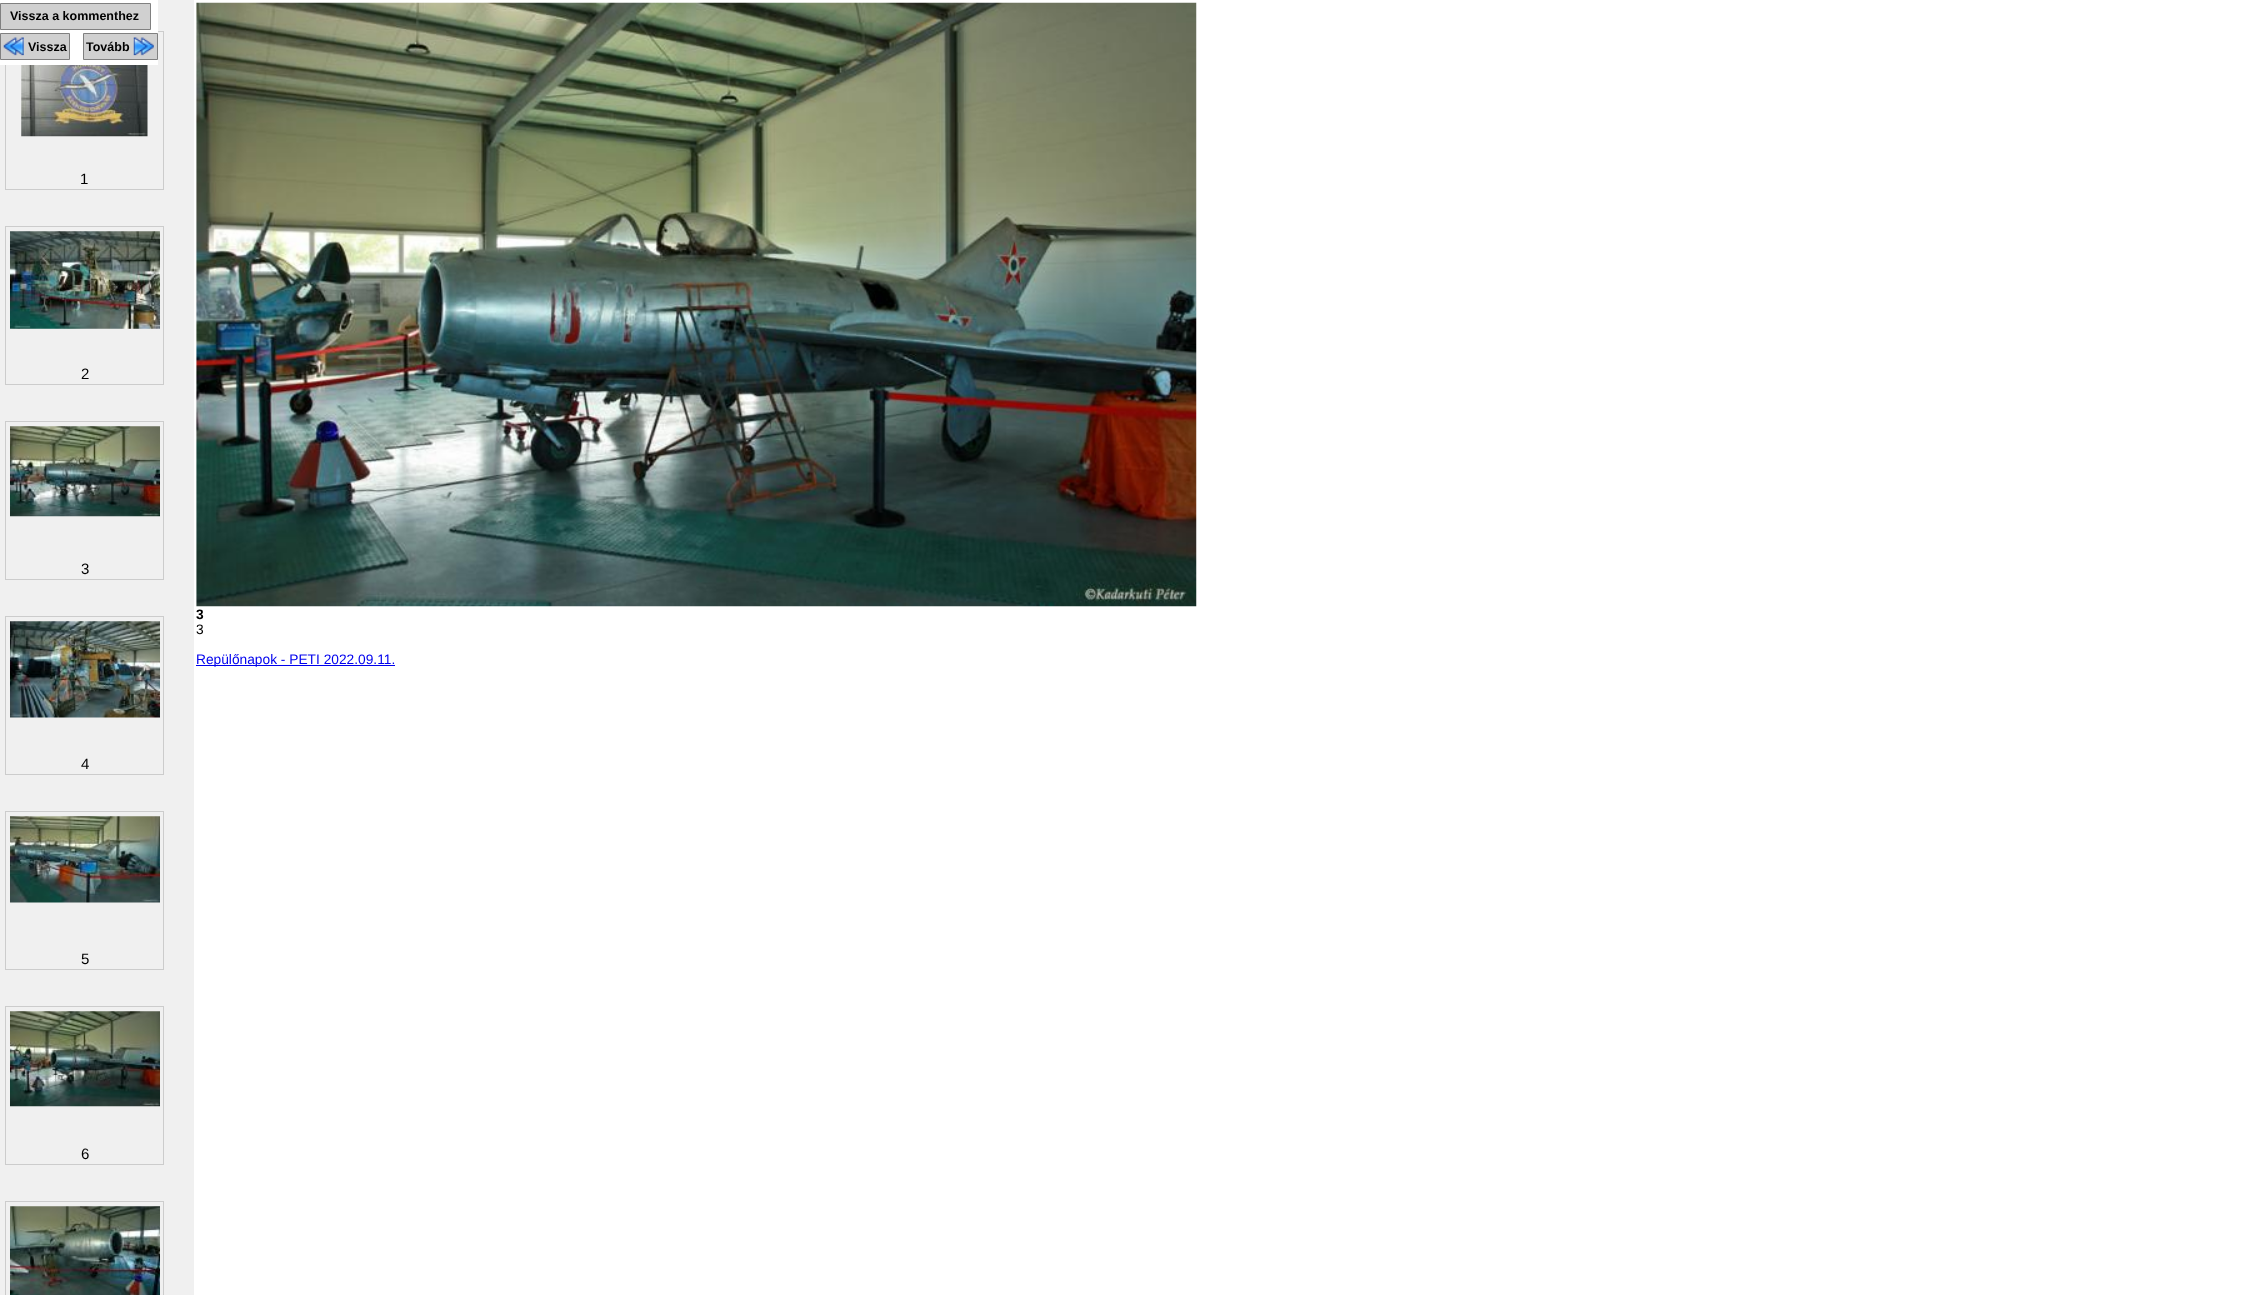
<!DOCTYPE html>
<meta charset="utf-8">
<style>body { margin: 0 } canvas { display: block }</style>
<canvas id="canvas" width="2246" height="1295"></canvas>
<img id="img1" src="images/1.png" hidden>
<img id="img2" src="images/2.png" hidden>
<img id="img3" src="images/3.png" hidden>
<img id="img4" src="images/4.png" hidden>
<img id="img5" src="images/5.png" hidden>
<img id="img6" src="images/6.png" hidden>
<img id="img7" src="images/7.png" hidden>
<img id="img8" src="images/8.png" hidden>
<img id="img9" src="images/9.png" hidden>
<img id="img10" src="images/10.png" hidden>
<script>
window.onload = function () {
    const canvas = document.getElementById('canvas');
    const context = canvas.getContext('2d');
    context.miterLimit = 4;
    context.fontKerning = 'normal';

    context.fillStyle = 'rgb(255, 255, 255)';
    context.fillRect(0, 0, 2246, 1295);
    context.fillStyle = 'rgb(240, 240, 240)';
    context.fillRect(0, 0, 194, 1295);
    context.strokeStyle = 'rgb(204, 204, 204)';
    context.strokeRect(5.5, 31.5, 158, 158);
    context.fillStyle = 'rgb(255, 255, 255)';
    context.fillRect(0, 0, 158, 65);
    context.fillStyle = 'rgb(208, 208, 208)';
    context.beginPath();
    context.rect(0.5, 3.5, 150, 26);
    context.fill();
    context.strokeStyle = 'rgb(128, 128, 128)';
    context.stroke();
    context.beginPath();
    context.rect(0.5, 33.5, 69, 26);
    context.fill();
    context.stroke();
    context.drawImage(document.getElementById('img1'), 3, 37, 21, 19);
    context.beginPath();
    context.rect(83.5, 33.5, 74, 26);
    context.fill();
    context.stroke();
    context.drawImage(document.getElementById('img2'), 133, 37, 21, 19);
    context.drawImage(document.getElementById('img3'), 21, 65, 127, 72);
    context.strokeStyle = 'rgb(204, 204, 204)';
    context.strokeRect(5.5, 226.5, 158, 158);
    context.drawImage(document.getElementById('img4'), 10, 231, 150, 98);
    context.strokeRect(5.5, 421.5, 158, 158);
    context.drawImage(document.getElementById('img5'), 10, 426, 150, 91);
    context.strokeRect(5.5, 616.5, 158, 158);
    context.drawImage(document.getElementById('img6'), 10, 621, 150, 97);
    context.strokeRect(5.5, 811.5, 158, 158);
    context.drawImage(document.getElementById('img7'), 10, 816, 150, 87);
    context.strokeRect(5.5, 1006.5, 158, 158);
    context.drawImage(document.getElementById('img8'), 10, 1011, 150, 96);
    context.strokeRect(5.5, 1201.5, 158, 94);
    context.drawImage(document.getElementById('img9'), 10, 1206, 150, 89);
    context.drawImage(document.getElementById('img10'), 196, 2, 1001, 605);
    context.fillStyle = 'rgb(0, 0, 238)';
    context.fillRect(196, 665, 199, 1);
    context.font = 'bold 12.5px Liberation Sans';
    context.fillStyle = 'rgb(0, 0, 0)';
    context.fillText('Vissza a kommenthez', 10, 20);
    context.fillText('Vissza', 28, 51);
    context.fillText('Tovább', 86, 51);
    context.font = '15px Liberation Sans';
    context.fillText('1', 80, 184);
    context.fillText('2', 81, 379);
    context.fillText('3', 81, 574);
    context.fillText('4', 81, 769);
    context.fillText('5', 81, 964);
    context.fillText('6', 81, 1159);
    context.font = 'bold 13.75px Liberation Sans';
    context.fillText('3', 196, 619);
    context.font = '13.75px Liberation Sans';
    context.fillText('3', 196, 634);
    context.fillStyle = 'rgb(0, 0, 238)';
    context.fillText('Repülőnapok - PETI 2022.09.11.', 196, 664);
};
</script>
